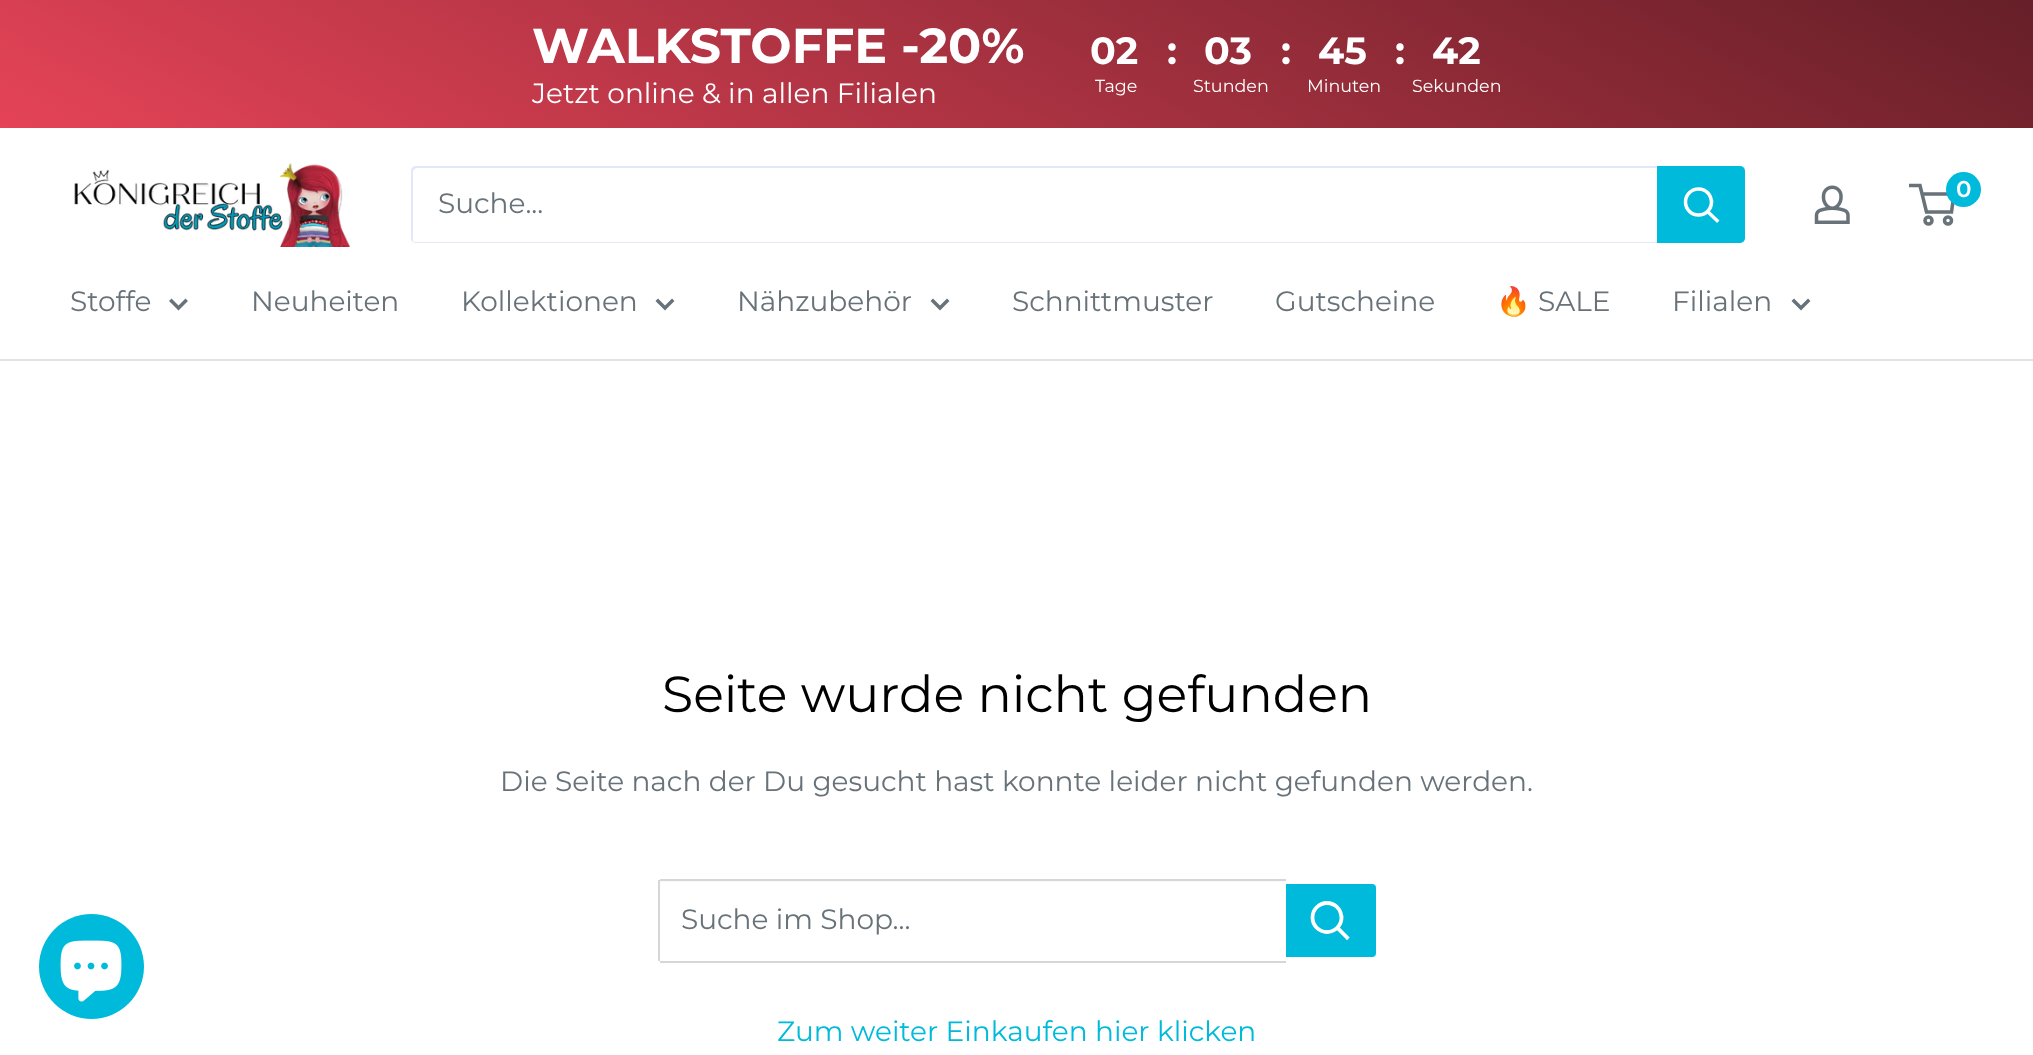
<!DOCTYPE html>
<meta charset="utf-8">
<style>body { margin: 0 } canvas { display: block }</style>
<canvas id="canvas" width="2033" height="1055"></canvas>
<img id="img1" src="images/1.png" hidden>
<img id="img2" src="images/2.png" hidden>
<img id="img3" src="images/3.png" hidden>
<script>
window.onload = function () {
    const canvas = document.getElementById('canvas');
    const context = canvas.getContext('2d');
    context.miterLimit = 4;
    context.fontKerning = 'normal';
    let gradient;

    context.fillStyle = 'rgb(255, 255, 255)';
    context.fillRect(0, 0, 2033, 1055);
    gradient = context.createLinearGradient(766, 535, 1267, -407);
    gradient.addColorStop(0, 'rgb(229, 67, 87)');
    gradient.addColorStop(1, 'rgb(102, 31, 40)');
    context.fillStyle = gradient;
    context.fillRect(0, 0, 2033, 128);
    context.drawImage(document.getElementById('img1'), 74, 163, 276, 84);
    context.drawImage(document.getElementById('img2'), 1814, 185, 36, 39);
    context.beginPath();
    context.arc(1928.5, 220.5, 3.5, 0, 2 * Math.PI);
    context.strokeStyle = 'rgb(103, 114, 121)';
    context.lineWidth = 3.5;
    context.stroke();
    context.beginPath();
    context.arc(1948, 220.5, 3.5, 0, 2 * Math.PI);
    context.stroke();
    context.beginPath();
    context.moveTo(1922, 194);
    context.lineTo(1954, 194);
    context.lineTo(1951.5, 212);
    context.lineTo(1926.5, 212);
    context.lineTo(1920, 185.5);
    context.lineTo(1909, 185.5);
    context.stroke();
    context.fillStyle = 'rgb(0, 186, 219)';
    context.beginPath();
    context.arc(1963.5, 189.5, 17.5, 0, 2 * Math.PI);
    context.fill();
    context.fillStyle = 'rgb(227, 231, 250)';
    context.beginPath();
    context.moveTo(412, 240);
    context.bezierCurveTo(412, 242, 414, 243, 416, 243);
    context.lineTo(1740, 243);
    context.bezierCurveTo(1743, 243, 1745, 241, 1745, 238);
    context.lineTo(1745, 171);
    context.bezierCurveTo(1745, 169, 1744, 167, 1742, 166);
    context.lineTo(1743, 170);
    context.lineTo(1743, 236);
    context.bezierCurveTo(1743, 239, 1741, 242, 1738, 242);
    context.lineTo(415, 242);
    context.bezierCurveTo(414, 242, 412, 241, 412, 240);
    context.closePath();
    context.fill();
    context.fillStyle = 'rgba(163, 175, 239, 0.3)';
    context.beginPath();
    context.moveTo(418, 168);
    context.lineTo(1741, 168);
    context.bezierCurveTo(1743, 168, 1744, 169, 1745, 170);
    context.bezierCurveTo(1744, 167, 1742, 166, 1740, 166);
    context.lineTo(416, 166);
    context.bezierCurveTo(413, 166, 411, 168, 411, 171);
    context.lineTo(411, 238);
    context.bezierCurveTo(411, 240, 412, 241, 413, 242);
    context.lineTo(413, 240);
    context.lineTo(413, 173);
    context.bezierCurveTo(413, 170, 415, 168, 418, 168);
    context.closePath();
    context.fill();
    context.fillStyle = 'rgb(0, 186, 219)';
    context.beginPath();
    context.roundRect(1657, 166, 88, 77, [0, 5, 5, 0]);
    context.fill();
    context.beginPath();
    context.moveTo(1717, 220.5);
    context.lineTo(1708, 212);
    context.strokeStyle = 'rgb(255, 255, 255)';
    context.lineCap = 'square';
    context.stroke();
    context.beginPath();
    context.arc(1698.5, 202, 13, 0, 2 * Math.PI);
    context.stroke();
    context.fillStyle = 'rgb(225, 227, 228)';
    context.fillRect(0, 359, 2033, 2);
    context.beginPath();
    context.moveTo(185.5, 301);
    context.lineTo(178.5, 308);
    context.lineTo(171.5, 301);
    context.strokeStyle = 'rgb(103, 114, 121)';
    context.stroke();
    context.beginPath();
    context.moveTo(672, 301);
    context.lineTo(665, 308);
    context.lineTo(658, 301);
    context.stroke();
    context.beginPath();
    context.moveTo(947, 301);
    context.lineTo(940, 308);
    context.lineTo(933, 301);
    context.stroke();
    context.beginPath();
    context.moveTo(1808, 301);
    context.lineTo(1801, 308);
    context.lineTo(1794, 301);
    context.stroke();
    context.fillStyle = 'rgb(0, 186, 219)';
    context.beginPath();
    context.arc(91.5, 966.5, 52.5, 0, 2 * Math.PI);
    context.fill();
    context.drawImage(document.getElementById('img3'), 60, 940, 62, 62);
    context.fillStyle = 'rgb(248, 248, 248)';
    context.beginPath();
    context.moveTo(662, 882);
    context.lineTo(1286, 882);
    context.lineTo(1286, 880);
    context.lineTo(662, 880);
    context.lineTo(660, 881);
    context.lineTo(660, 883);
    context.closePath();
    context.fill();
    context.fillStyle = 'rgb(212, 214, 216)';
    context.fillRect(660, 879, 626, 2);
    context.fillRect(660, 961, 626, 2);
    context.fillRect(658, 880, 2, 81);
    context.fillStyle = 'rgb(0, 186, 219)';
    context.beginPath();
    context.roundRect(1286, 884, 90, 73, [0, 4, 4, 0]);
    context.fill();
    context.beginPath();
    context.moveTo(1347, 937.5);
    context.lineTo(1337.5, 928);
    context.strokeStyle = 'rgb(255, 255, 255)';
    context.lineWidth = 3.8;
    context.stroke();
    context.beginPath();
    context.arc(1327, 917.5, 14.5, 0, 2 * Math.PI);
    context.stroke();
    context.font = 'bold 49px Montserrat';
    context.fillStyle = 'rgb(255, 255, 255)';
    context.fillText('WALKSTOFFE -20%', 532, 63);
    context.font = '28px Montserrat';
    context.fillText('Jetzt online & in allen Filialen', 532, 103);
    context.font = 'bold 38px Montserrat';
    context.fillText('02', 1090, 64);
    context.fillText(':', 1167, 64);
    context.fillText('03', 1204, 64);
    context.fillText(':', 1281, 64);
    context.fillText('45', 1318, 64);
    context.fillText(':', 1395, 64);
    context.fillText('42', 1432, 64);
    context.font = '17.5px Montserrat';
    context.fillText('Tage', 1095, 92);
    context.fillText('Stunden', 1193, 92);
    context.fillText('Minuten', 1307, 92);
    context.fillText('Sekunden', 1412, 92);
    context.font = '600 23px Montserrat';
    context.fillText('0', 1956, 197);
    context.font = '28px Montserrat';
    context.fillStyle = 'rgb(103, 114, 121)';
    context.fillText('Suche...', 438, 213);
    context.fillText('Stoffe', 70, 311);
    context.fillText('Neuheiten', 251, 311);
    context.fillText('Kollektionen', 461, 311);
    context.fillText('Nähzubehör', 737, 311);
    context.fillText('Schnittmuster', 1012, 311);
    context.fillText('Gutscheine', 1275, 311);
    context.font = '28px Noto Color Emoji';
    context.fillText('🔥', 1496, 311);
    context.font = '28px Montserrat';
    context.fillText('SALE', 1538, 311);
    context.fillText('Filialen', 1672, 311);
    context.font = '50.75px Montserrat';
    context.fillStyle = 'rgb(0, 0, 0)';
    context.fillText('Seite wurde nicht gefunden', 662, 712);
    context.font = '28px Montserrat';
    context.fillStyle = 'rgb(103, 114, 121)';
    context.fillText('Die Seite nach der Du gesucht hast konnte leider nicht gefunden werden.', 500, 791);
    context.fillText('Suche im Shop...', 681, 929);
    context.fillStyle = 'rgb(0, 186, 219)';
    context.fillText('Zum weiter Einkaufen hier klicken', 777, 1041);
};
</script>
